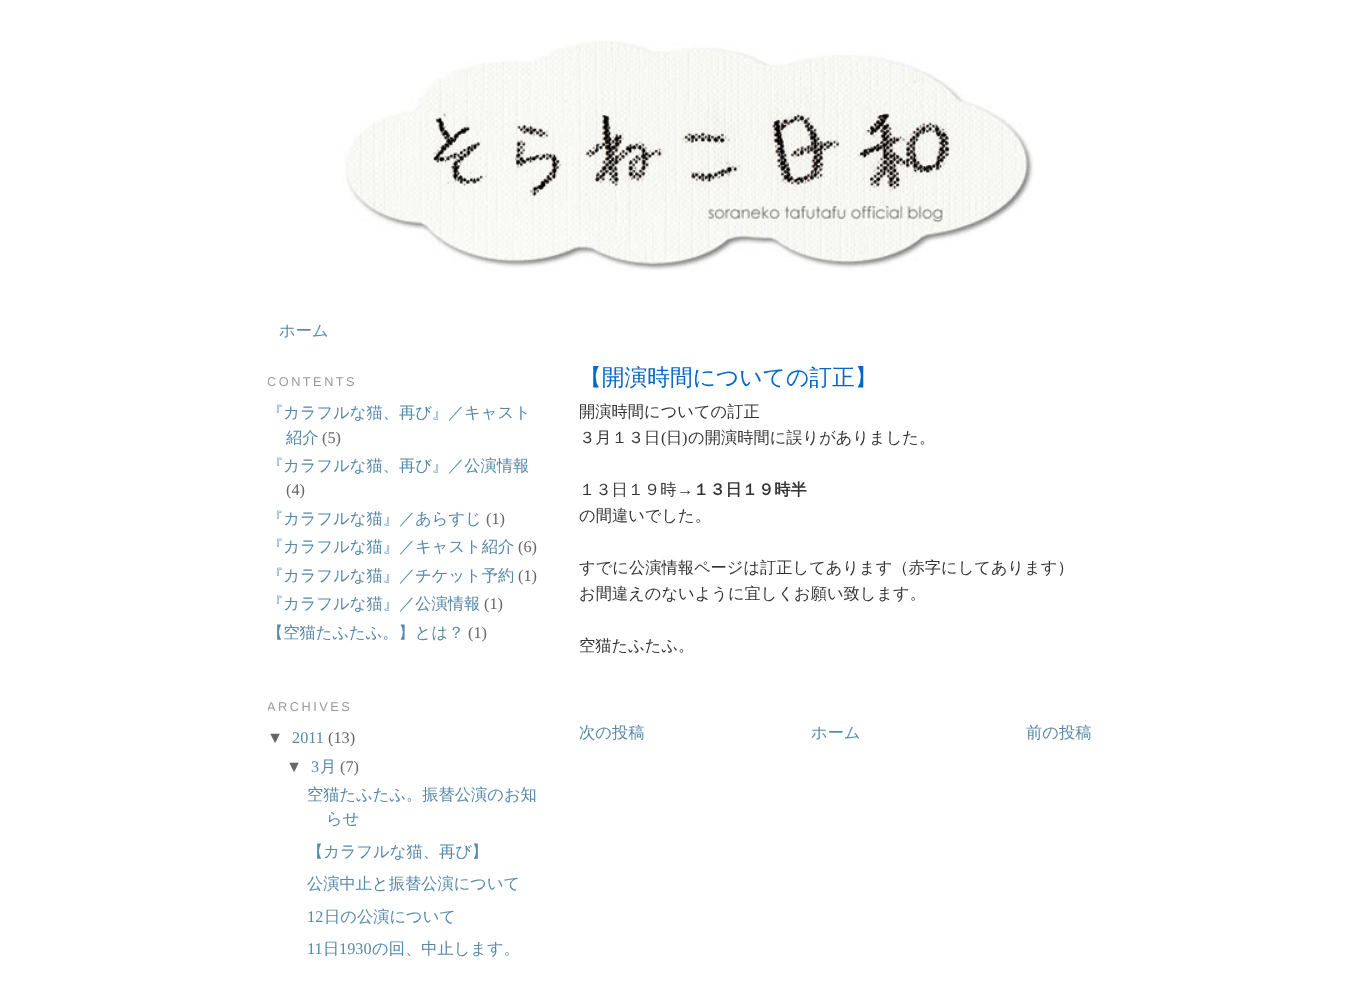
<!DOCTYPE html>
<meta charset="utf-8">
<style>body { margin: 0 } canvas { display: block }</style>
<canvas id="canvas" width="1358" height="983"></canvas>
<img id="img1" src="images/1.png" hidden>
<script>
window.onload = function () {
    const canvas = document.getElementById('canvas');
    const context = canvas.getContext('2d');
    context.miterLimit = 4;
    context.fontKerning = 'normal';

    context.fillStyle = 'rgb(255, 255, 255)';
    context.fillRect(0, 0, 1358, 983);
    context.drawImage(document.getElementById('img1'), 342, 41, 692, 230);
    context.font = '500 16.25px WenQuanYi Zen Hei';
    context.fillStyle = 'rgb(85, 136, 170)';
    context.fillText('ホーム', 279, 336);
    context.save();
    context.beginPath();
    context.rect(268, 355, 275, 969);
    context.clip();
    context.letterSpacing = '2.5px';
    context.font = '12.75px Liberation Sans';
    context.fillStyle = 'rgb(153, 153, 153)';
    context.fillText('CONTENTS', 267, 386);
    context.restore();
    context.fillText('『カラフルな猫、再び』／キャスト', 267, 418);
    context.fillText('紹介', 286, 443);
    context.font = '16.25px Liberation Serif';
    context.fillStyle = 'rgb(102, 102, 102)';
    context.fillText('(5)', 322, 443);
    context.font = '500 16.25px WenQuanYi Zen Hei';
    context.fillStyle = 'rgb(85, 136, 170)';
    context.fillText('『カラフルな猫、再び』／公演情報', 267, 471);
    context.font = '16.25px Liberation Serif';
    context.fillStyle = 'rgb(102, 102, 102)';
    context.fillText('(4)', 286, 495);
    context.font = '500 16.25px WenQuanYi Zen Hei';
    context.fillStyle = 'rgb(85, 136, 170)';
    context.fillText('『カラフルな猫』／あらすじ', 267, 524);
    context.font = '16.25px Liberation Serif';
    context.fillStyle = 'rgb(102, 102, 102)';
    context.fillText('(1)', 486, 524);
    context.font = '500 16.25px WenQuanYi Zen Hei';
    context.fillStyle = 'rgb(85, 136, 170)';
    context.fillText('『カラフルな猫』／キャスト紹介', 267, 552);
    context.font = '16.25px Liberation Serif';
    context.fillStyle = 'rgb(102, 102, 102)';
    context.fillText('(6)', 518, 552);
    context.font = '500 16.25px WenQuanYi Zen Hei';
    context.fillStyle = 'rgb(85, 136, 170)';
    context.fillText('『カラフルな猫』／チケット予約', 267, 581);
    context.font = '16.25px Liberation Serif';
    context.fillStyle = 'rgb(102, 102, 102)';
    context.fillText('(1)', 518, 581);
    context.font = '500 16.25px WenQuanYi Zen Hei';
    context.fillStyle = 'rgb(85, 136, 170)';
    context.fillText('『カラフルな猫』／公演情報', 267, 609);
    context.font = '16.25px Liberation Serif';
    context.fillStyle = 'rgb(102, 102, 102)';
    context.fillText('(1)', 484, 609);
    context.font = '500 16.25px WenQuanYi Zen Hei';
    context.fillStyle = 'rgb(85, 136, 170)';
    context.fillText('【空猫たふたふ。】とは？', 267, 638);
    context.font = '16.25px Liberation Serif';
    context.fillStyle = 'rgb(102, 102, 102)';
    context.fillText('(1)', 468, 638);
    context.save();
    context.beginPath();
    context.rect(268, 355, 275, 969);
    context.clip();
    context.letterSpacing = '2.5px';
    context.font = '12.75px Liberation Sans';
    context.fillStyle = 'rgb(153, 153, 153)';
    context.fillText('ARCHIVES', 267, 711);
    context.restore();
    context.font = '16.25px Liberation Sans';
    context.fillText('▼', 267, 743);
    context.font = '16.25px Liberation Serif';
    context.fillStyle = 'rgb(85, 136, 170)';
    context.fillText('2011', 292, 743);
    context.fillStyle = 'rgb(102, 102, 102)';
    context.fillText('(13)', 328, 743);
    context.font = '16.25px Liberation Sans';
    context.fillText('▼', 286, 772);
    context.font = '16.25px Liberation Serif';
    context.fillStyle = 'rgb(85, 136, 170)';
    context.fillText('3', 311, 772);
    context.font = '500 16.25px WenQuanYi Zen Hei';
    context.fillText('月', 320, 772);
    context.font = '16.25px Liberation Serif';
    context.fillStyle = 'rgb(102, 102, 102)';
    context.fillText('(7)', 340, 772);
    context.font = '500 16.25px WenQuanYi Zen Hei';
    context.fillStyle = 'rgb(85, 136, 170)';
    context.fillText('空猫たふたふ。振替公演のお知', 307, 800);
    context.fillText('らせ', 326, 824);
    context.fillText('【カラフルな猫、再び】', 307, 857);
    context.fillText('公演中止と振替公演について', 307, 889);
    context.font = '16.25px Liberation Serif';
    context.fillText('12', 307, 922);
    context.font = '500 16.25px WenQuanYi Zen Hei';
    context.fillText('日の公演について', 324, 922);
    context.font = '16.25px Liberation Serif';
    context.fillText('11', 307, 954);
    context.font = '500 16.25px WenQuanYi Zen Hei';
    context.fillText('日', 323, 954);
    context.font = '16.25px Liberation Serif';
    context.fillText('1930', 339, 954);
    context.font = '500 16.25px WenQuanYi Zen Hei';
    context.fillText('の回、中止します。', 372, 954);
    context.font = '500 22.75px WenQuanYi Zen Hei';
    context.fillStyle = 'rgb(0, 102, 204)';
    context.fillText('【開演時間についての訂正】', 579, 385);
    context.font = '500 16.25px WenQuanYi Zen Hei';
    context.fillStyle = 'rgb(51, 51, 51)';
    context.fillText('開演時間についての訂正', 579, 417);
    context.fillText('３月１３日', 579, 443);
    context.font = '16.25px Liberation Serif';
    context.fillText('(', 661, 443);
    context.font = '500 16.25px WenQuanYi Zen Hei';
    context.fillText('日', 666, 443);
    context.font = '16.25px Liberation Serif';
    context.fillText(')', 682, 443);
    context.font = '500 16.25px WenQuanYi Zen Hei';
    context.fillText('の開演時間に誤りがありました。', 688, 443);
    context.fillText('１３日１９時', 579, 495);
    context.font = '16.25px Liberation Serif';
    context.fillText('→', 677, 495);
    context.font = 'bold 16.25px WenQuanYi Zen Hei';
    context.fillText('１３日１９時半', 693, 495);
    context.font = '500 16.25px WenQuanYi Zen Hei';
    context.fillText('の間違いでした。', 579, 521);
    context.fillText('すでに公演情報ページは訂正してあります（赤字にしてあります）', 579, 573);
    context.fillText('お間違えのないように宜しくお願い致します。', 579, 599);
    context.fillText('空猫たふたふ。', 579, 651);
    context.fillStyle = 'rgb(85, 136, 170)';
    context.fillText('次の投稿', 579, 738);
    context.fillText('ホーム', 811, 738);
    context.fillText('前の投稿', 1026, 738);
};
</script>
